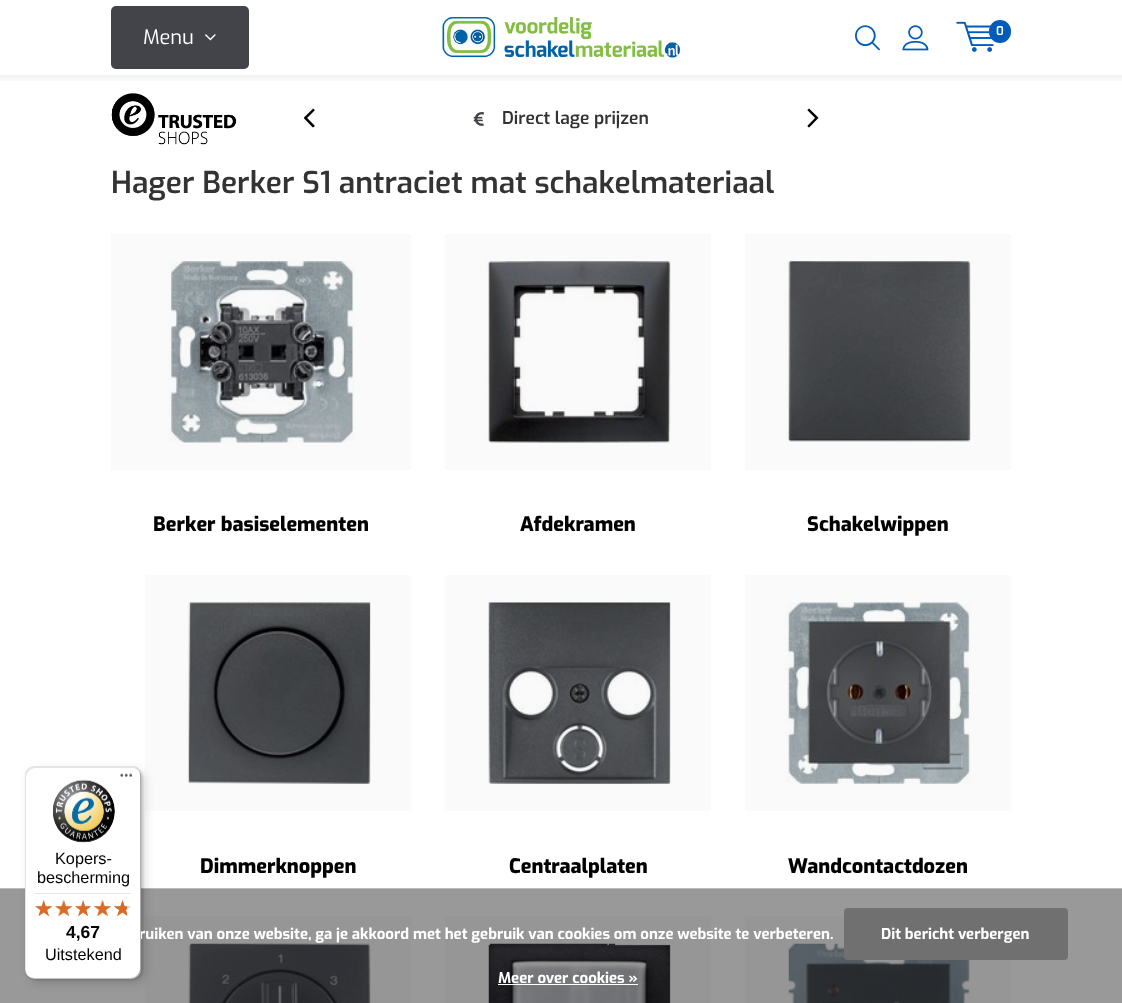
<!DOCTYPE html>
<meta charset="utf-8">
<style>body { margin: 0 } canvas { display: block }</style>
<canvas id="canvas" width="1122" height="1003"></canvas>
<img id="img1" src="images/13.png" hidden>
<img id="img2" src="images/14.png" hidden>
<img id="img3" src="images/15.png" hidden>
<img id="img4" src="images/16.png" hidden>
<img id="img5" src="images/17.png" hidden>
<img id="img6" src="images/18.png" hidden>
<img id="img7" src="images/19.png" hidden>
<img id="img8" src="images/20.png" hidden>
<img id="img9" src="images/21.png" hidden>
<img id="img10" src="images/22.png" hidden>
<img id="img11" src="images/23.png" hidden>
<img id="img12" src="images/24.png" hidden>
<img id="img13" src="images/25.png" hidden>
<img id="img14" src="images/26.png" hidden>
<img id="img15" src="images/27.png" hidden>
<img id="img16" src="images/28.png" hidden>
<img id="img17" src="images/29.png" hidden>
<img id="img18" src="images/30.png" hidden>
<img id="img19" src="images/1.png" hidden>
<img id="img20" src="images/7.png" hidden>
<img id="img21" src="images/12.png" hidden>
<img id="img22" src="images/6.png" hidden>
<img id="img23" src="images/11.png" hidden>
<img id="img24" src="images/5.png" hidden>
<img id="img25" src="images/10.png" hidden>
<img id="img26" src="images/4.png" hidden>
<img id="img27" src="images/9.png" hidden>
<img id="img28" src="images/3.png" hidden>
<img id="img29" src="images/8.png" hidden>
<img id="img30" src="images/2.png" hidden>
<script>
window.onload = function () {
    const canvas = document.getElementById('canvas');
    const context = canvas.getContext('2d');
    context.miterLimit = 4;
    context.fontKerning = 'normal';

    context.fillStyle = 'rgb(255, 255, 255)';
    context.fillRect(0, 0, 1122, 1003);
    context.fillStyle = 'rgb(153, 153, 153)';
    context.fillRect(0, 889, 1122, 114);
    context.fillStyle = 'rgb(150, 150, 150)';
    context.fillRect(745, 916, 266, 87);
    context.fillRect(445, 916, 266, 87);
    context.fillRect(145, 916, 266, 87);
    context.fillStyle = 'rgb(250, 250, 250)';
    context.fillRect(745, 575, 266, 236);
    context.fillRect(445, 575, 266, 236);
    context.fillRect(145, 575, 266, 236);
    context.fillRect(745, 234, 266, 236);
    context.fillRect(445, 234, 266, 236);
    context.fillRect(111, 234, 300, 236);
    context.fillStyle = 'rgb(187, 187, 187)';
    context.fillRect(0, 888, 1122, 1);
    context.fillStyle = 'rgba(0, 0, 0, 0.15)';
    context.filter = 'blur(5px)';
    context.beginPath();
    context.roundRect(29, 770, 116, 213, 10);
    context.fill();
    context.filter = 'none';
    context.filter = 'blur(1px)';
    context.beginPath();
    context.roundRect(26, 768, 117, 212, 10);
    context.fill();
    context.filter = 'none';
    context.fillStyle = 'rgb(255, 255, 255)';
    context.beginPath();
    context.roundRect(25, 766, 116, 213, 10);
    context.fill();
    context.fillStyle = 'rgba(0, 0, 0, 0.1)';
    context.beginPath();
    context.moveTo(36, 768);
    context.lineTo(132, 768);
    context.bezierCurveTo(135, 768, 138, 769, 140, 772);
    context.bezierCurveTo(138, 768, 135, 766, 131, 766);
    context.lineTo(35, 766);
    context.bezierCurveTo(29, 766, 25, 770, 25, 776);
    context.lineTo(25, 969);
    context.bezierCurveTo(25, 972, 26, 975, 28, 977);
    context.bezierCurveTo(27, 975, 26, 973, 26, 970);
    context.lineTo(26, 778);
    context.bezierCurveTo(26, 772, 31, 768, 36, 768);
    context.closePath();
    context.fill();
    context.save();
    context.beginPath();
    context.rect(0, 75, 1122, 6);
    context.clip();
    context.fillStyle = 'rgba(0, 0, 0, 0.05)';
    context.filter = 'blur(2.5px)';
    context.beginPath();
    context.rect(-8, 5, 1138, 75);
    context.fill();
    context.filter = 'none';
    context.restore();
    context.drawImage(document.getElementById('img1'), 442, 17, 238, 41);
    context.fillStyle = 'rgb(66, 68, 73)';
    context.beginPath();
    context.roundRect(111, 6, 138, 63, 5);
    context.fill();
    context.drawImage(document.getElementById('img2'), 205, 34, 11, 7);
    context.drawImage(document.getElementById('img3'), 855, 25, 25, 26);
    context.drawImage(document.getElementById('img4'), 902, 25, 27, 26);
    context.drawImage(document.getElementById('img5'), 956, 21, 38, 31);
    context.fillStyle = 'rgb(0, 92, 184)';
    context.beginPath();
    context.roundRect(989, 20, 22, 23, 11);
    context.fill();
    context.drawImage(document.getElementById('img6'), 111, 93, 126, 52);
    context.drawImage(document.getElementById('img7'), 304, 108, 11, 20);
    context.drawImage(document.getElementById('img8'), 807, 108, 12, 20);
    context.drawImage(document.getElementById('img9'), 473, 112, 12, 14);
    context.drawImage(document.getElementById('img10'), 167, 261, 188, 182);
    context.drawImage(document.getElementById('img11'), 486, 261, 185, 182);
    context.drawImage(document.getElementById('img12'), 785, 261, 186, 181);
    context.drawImage(document.getElementById('img13'), 187, 602, 184, 182);
    context.drawImage(document.getElementById('img14'), 488, 602, 183, 182);
    context.drawImage(document.getElementById('img15'), 785, 602, 186, 182);
    context.drawImage(document.getElementById('img16'), 188, 943, 183, 60);
    context.drawImage(document.getElementById('img17'), 488, 943, 183, 60);
    context.drawImage(document.getElementById('img18'), 788, 943, 182, 60);
    context.fillStyle = 'rgb(112, 112, 112)';
    context.beginPath();
    context.roundRect(844, 908, 224, 52, 4);
    context.fill();
    context.fillStyle = 'rgb(255, 255, 255)';
    context.fillRect(498, 984, 140, 1);
    context.font = '20px Exo';
    context.fillText('Menu', 143, 44);
    context.font = '600 12px Exo';
    context.fillText('0', 996, 35);
    context.font = '600 17.5px Exo';
    context.fillStyle = 'rgb(51, 51, 51)';
    context.fillText('Direct lage prijzen', 502, 124);
    context.font = '600 30px Exo';
    context.fillText('Hager Berker S1 antraciet mat schakelmateriaal', 111, 193);
    context.font = '800 20px Exo';
    context.fillStyle = 'rgb(0, 0, 0)';
    context.fillText('Berker basiselementen', 153, 531);
    context.fillText('Afdekramen', 520, 531);
    context.fillText('Schakelwippen', 807, 531);
    context.fillText('Dimmerknoppen', 200, 873);
    context.fillText('Centraalplaten', 509, 873);
    context.fillText('Wandcontactdozen', 788, 873);
    context.font = 'bold 15px Exo';
    context.fillStyle = 'rgb(255, 255, 255)';
    context.fillText('ruiken van onze website, ga je akkoord met het gebruik van cookies om onze website te verbeteren.', 139, 939);
    context.fillStyle = 'rgba(0, 0, 0, 0.2)';
    context.beginPath();
    context.moveTo(27, 976);
    context.bezierCurveTo(29, 978, 32, 979, 35, 979);
    context.lineTo(131, 979);
    context.bezierCurveTo(137, 979, 141, 975, 141, 969);
    context.lineTo(141, 776);
    context.bezierCurveTo(141, 774, 140, 771, 139, 770);
    context.bezierCurveTo(140, 771, 140, 773, 140, 775);
    context.lineTo(140, 968);
    context.bezierCurveTo(140, 973, 136, 978, 130, 978);
    context.lineTo(34, 978);
    context.bezierCurveTo(31, 978, 29, 977, 27, 976);
    context.closePath();
    context.fill();
    context.fillStyle = 'rgba(50, 50, 50, 0.2)';
    context.beginPath();
    context.moveTo(27, 975);
    context.bezierCurveTo(29, 978, 32, 979, 35, 979);
    context.lineTo(131, 979);
    context.bezierCurveTo(137, 979, 141, 975, 141, 969);
    context.lineTo(141, 776);
    context.bezierCurveTo(141, 770, 137, 766, 131, 766);
    context.lineTo(130, 766);
    context.bezierCurveTo(136, 766, 140, 770, 140, 776);
    context.lineTo(140, 968);
    context.bezierCurveTo(140, 974, 136, 978, 130, 978);
    context.lineTo(34, 978);
    context.bezierCurveTo(32, 978, 29, 977, 27, 975);
    context.closePath();
    context.fill();
    context.drawImage(document.getElementById('img19'), 120, 773, 13, 4);
    context.drawImage(document.getElementById('img20'), 114, 900, 17, 16);
    context.drawImage(document.getElementById('img21'), 114, 900, 13, 16);
    context.drawImage(document.getElementById('img22'), 93, 900, 18, 16);
    context.drawImage(document.getElementById('img23'), 93, 900, 18, 16);
    context.drawImage(document.getElementById('img24'), 75, 900, 16, 16);
    context.drawImage(document.getElementById('img25'), 75, 900, 16, 16);
    context.drawImage(document.getElementById('img26'), 55, 900, 17, 16);
    context.drawImage(document.getElementById('img27'), 54, 900, 19, 16);
    context.drawImage(document.getElementById('img28'), 35, 900, 17, 16);
    context.drawImage(document.getElementById('img29'), 35, 900, 17, 16);
    context.font = '16.25px Liberation Sans';
    context.fillStyle = 'rgb(0, 0, 0)';
    context.fillText('Uitstekend', 45, 960);
    context.font = 'bold 17.5px Liberation Sans';
    context.fillText('4,67', 66, 938);
    context.font = '16.25px Liberation Sans';
    context.fillText('bescherming', 37, 883);
    context.fillText('Kopers-', 55, 864);
    context.drawImage(document.getElementById('img30'), 53, 779, 62, 64);
    context.fillStyle = 'rgb(229, 229, 229)';
    context.fillRect(35, 893, 96, 1);
    context.fillStyle = 'rgba(255, 255, 255, 0.3)';
    context.beginPath();
    context.moveTo(27, 975);
    context.bezierCurveTo(29, 978, 32, 979, 35, 979);
    context.lineTo(131, 979);
    context.bezierCurveTo(137, 979, 141, 975, 141, 969);
    context.lineTo(141, 968);
    context.bezierCurveTo(141, 974, 136, 978, 131, 978);
    context.lineTo(34, 978);
    context.bezierCurveTo(32, 978, 29, 977, 27, 975);
    context.closePath();
    context.moveTo(139, 770);
    context.bezierCurveTo(137, 767, 134, 766, 131, 766);
    context.bezierCurveTo(134, 766, 137, 767, 139, 770);
    context.closePath();
    context.fill('evenodd');
    context.font = 'bold 15px Exo';
    context.fillStyle = 'rgb(255, 255, 255)';
    context.fillText('Dit bericht verbergen', 881, 939);
    context.fillText('Meer over cookies »', 498, 983);
};
</script>
